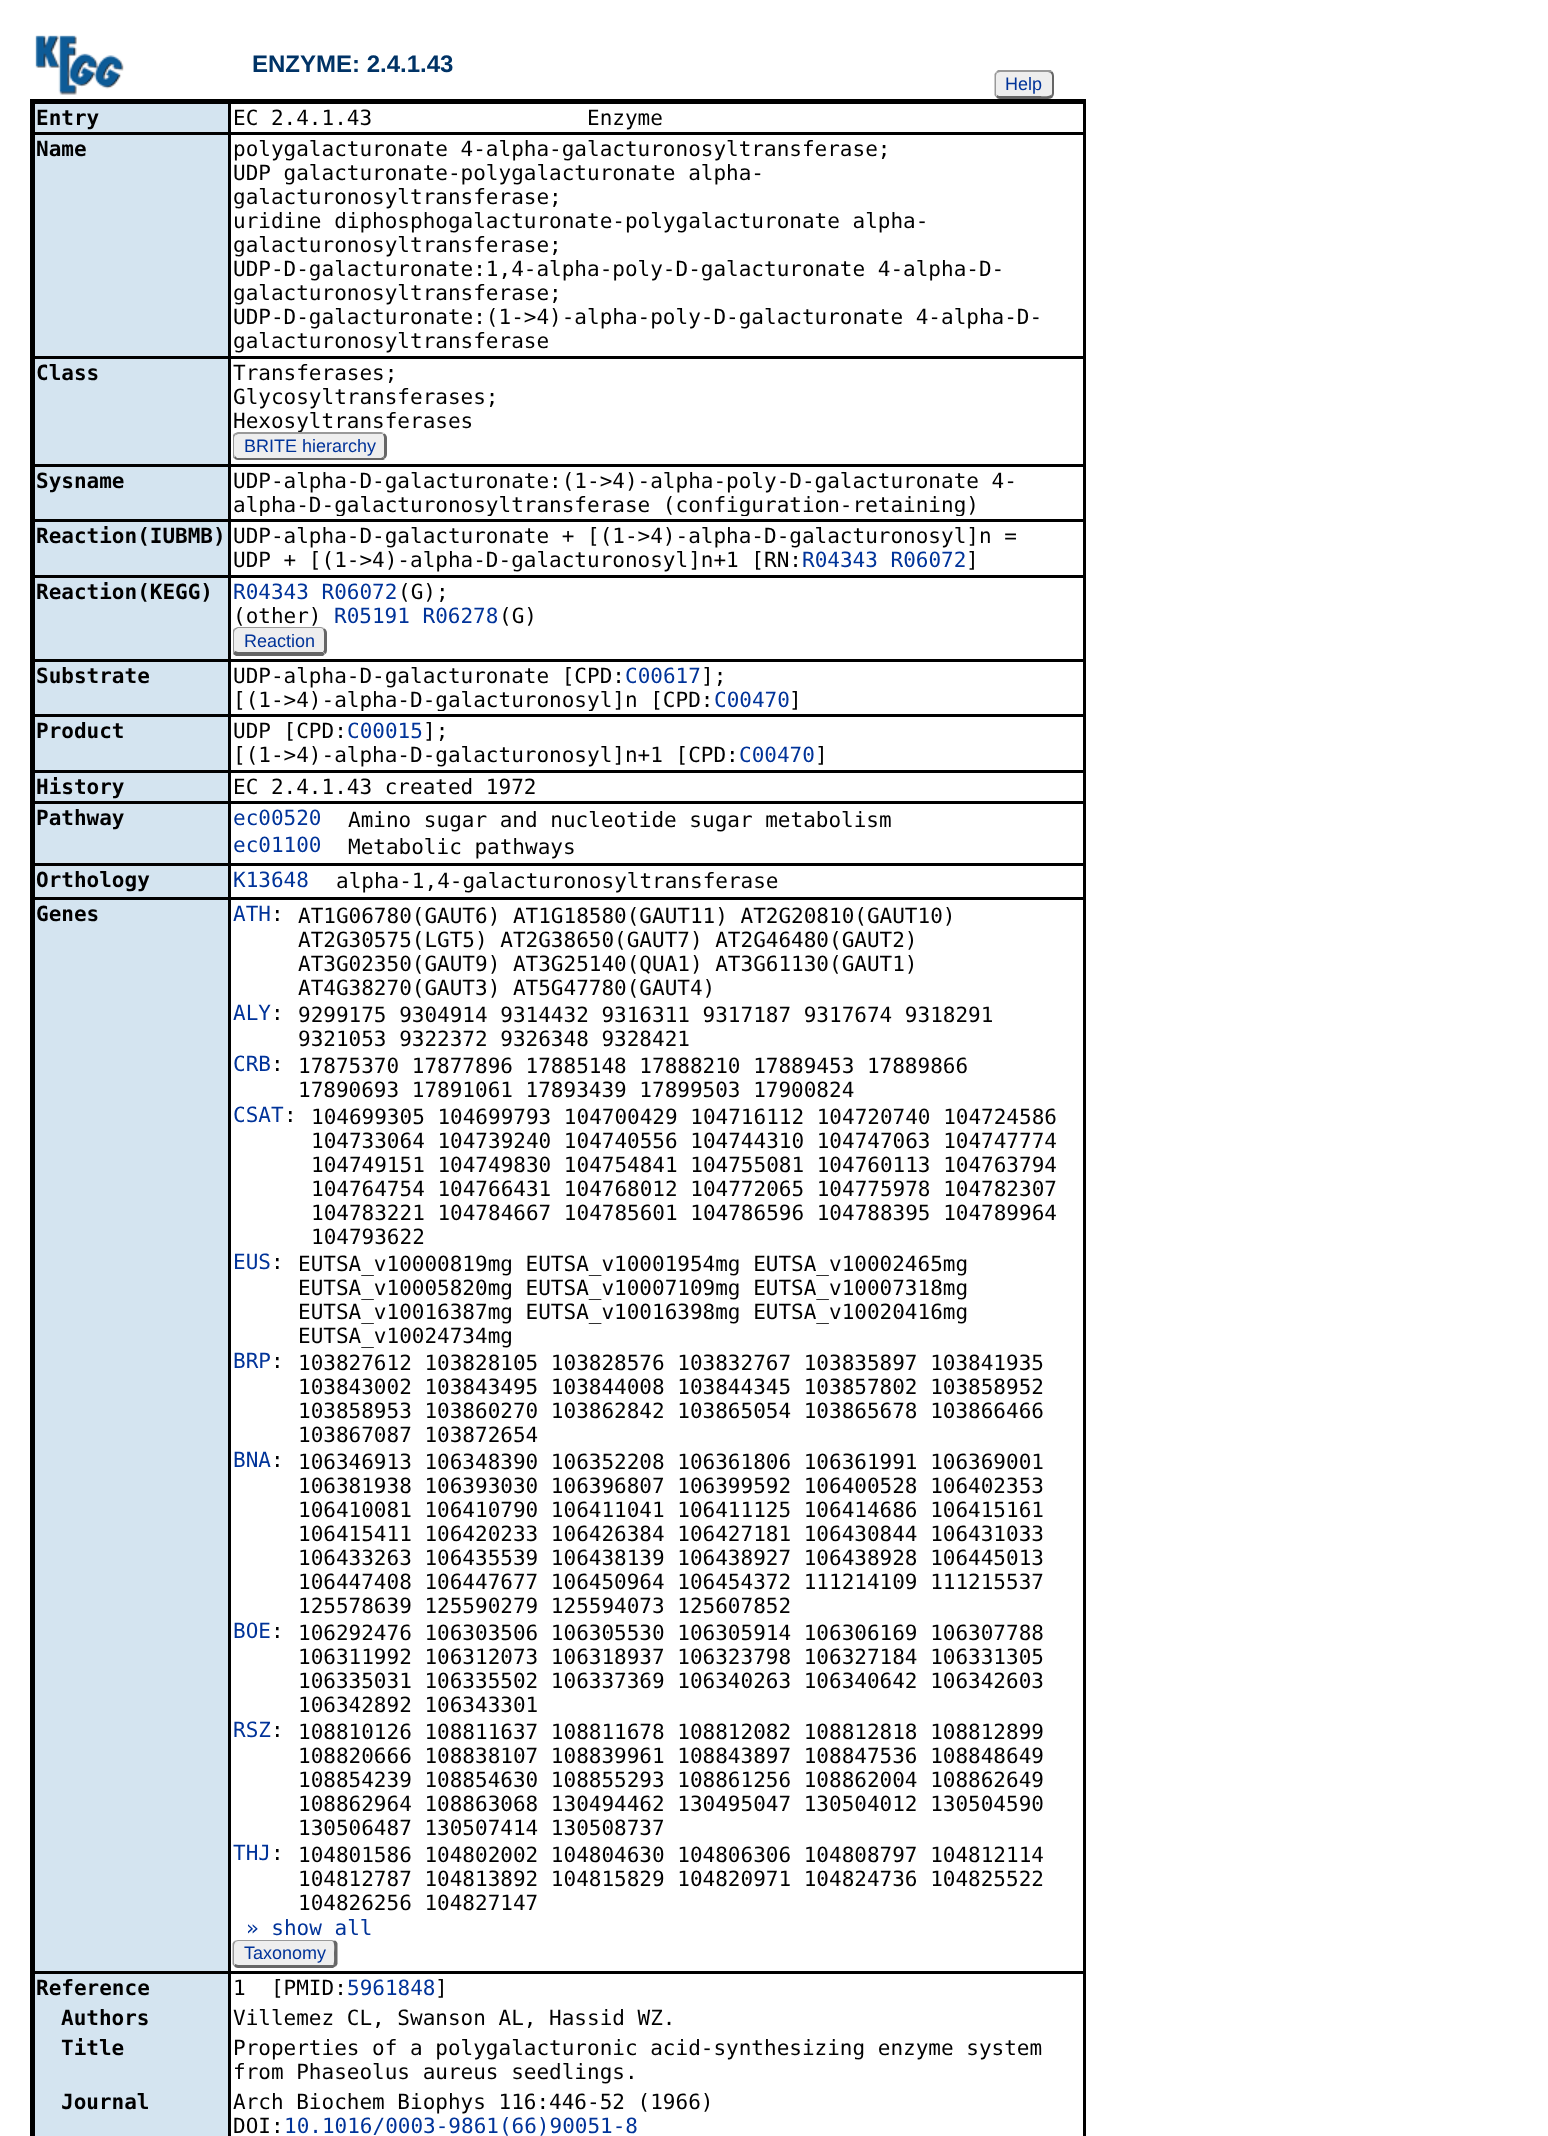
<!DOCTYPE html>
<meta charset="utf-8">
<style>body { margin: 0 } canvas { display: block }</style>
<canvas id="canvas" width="1548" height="2136"></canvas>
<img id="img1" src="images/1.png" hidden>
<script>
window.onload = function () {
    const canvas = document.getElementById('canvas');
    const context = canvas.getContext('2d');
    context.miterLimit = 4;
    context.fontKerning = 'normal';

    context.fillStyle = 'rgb(255, 255, 255)';
    context.fillRect(0, 0, 1548, 2136);
    context.drawImage(document.getElementById('img1'), 35, 35, 89, 60);
    context.fillStyle = 'rgb(238, 238, 238)';
    context.beginPath();
    context.moveTo(1000, 72);
    context.lineTo(1048, 72);
    context.bezierCurveTo(1050, 72, 1052, 74, 1052, 76);
    context.lineTo(1052, 93);
    context.bezierCurveTo(1052, 95, 1050, 96, 1048, 96);
    context.lineTo(1000, 96);
    context.bezierCurveTo(998, 96, 996, 95, 996, 93);
    context.lineTo(996, 76);
    context.bezierCurveTo(996, 74, 998, 72, 1000, 72);
    context.closePath();
    context.fill();
    context.fillStyle = 'rgb(153, 153, 153)';
    context.beginPath();
    context.moveTo(1000, 72);
    context.lineTo(997, 73);
    context.lineTo(996, 72);
    context.lineTo(998, 70);
    context.lineTo(1051, 70);
    context.lineTo(1052, 72);
    context.lineTo(1050, 73);
    context.lineTo(1048, 72);
    context.closePath();
    context.fill();
    context.fillStyle = 'rgb(102, 102, 102)';
    context.beginPath();
    context.moveTo(1052.5, 71.5);
    context.bezierCurveTo(1053.5, 73, 1054, 74.5, 1054, 76);
    context.lineTo(1054, 93);
    context.bezierCurveTo(1054, 94.5, 1053.5, 96, 1052.5, 97);
    context.lineTo(1051, 95);
    context.bezierCurveTo(1051.5, 95, 1052, 94, 1052, 93);
    context.lineTo(1052, 76);
    context.bezierCurveTo(1052, 74.5, 1051, 73.5, 1050, 72.5);
    context.closePath();
    context.fill();
    context.beginPath();
    context.moveTo(1000, 99);
    context.lineTo(1048, 99);
    context.bezierCurveTo(1050, 99, 1052, 98, 1053, 97);
    context.lineTo(1051, 95);
    context.bezierCurveTo(1048, 97, 1041, 96, 1040, 96);
    context.lineTo(999, 96);
    context.lineTo(997, 95);
    context.lineTo(996, 97);
    context.bezierCurveTo(997, 98, 998, 99, 1000, 99);
    context.closePath();
    context.fill();
    context.fillStyle = 'rgb(153, 153, 153)';
    context.beginPath();
    context.moveTo(994.5, 74);
    context.lineTo(996, 72);
    context.lineTo(997, 73);
    context.bezierCurveTo(996.5, 74, 996, 75, 996, 76);
    context.lineTo(996, 93);
    context.bezierCurveTo(996, 93.5, 996, 94.5, 996.5, 94.5);
    context.lineTo(995.5, 97);
    context.lineTo(994.5, 95);
    context.closePath();
    context.fill();
    context.fillStyle = 'rgb(0, 0, 0)';
    context.fillRect(30, 99, 1056, 2037);
    context.fillStyle = 'rgb(212, 228, 240)';
    context.fillRect(35, 104, 193, 28);
    context.fillStyle = 'rgb(255, 255, 255)';
    context.fillRect(231, 104, 852, 28);
    context.fillStyle = 'rgb(212, 228, 240)';
    context.fillRect(35, 135, 193, 221);
    context.fillStyle = 'rgb(255, 255, 255)';
    context.fillRect(231, 135, 852, 221);
    context.fillStyle = 'rgb(212, 228, 240)';
    context.fillRect(35, 359, 193, 105);
    context.fillStyle = 'rgb(255, 255, 255)';
    context.fillRect(231, 359, 852, 105);
    context.fillStyle = 'rgb(238, 238, 238)';
    context.beginPath();
    context.moveTo(238, 434);
    context.lineTo(381, 434);
    context.bezierCurveTo(383, 434, 384, 436, 384, 438);
    context.lineTo(384, 454);
    context.bezierCurveTo(384, 456, 383, 458, 381, 458);
    context.lineTo(238, 458);
    context.bezierCurveTo(236, 458, 234, 456, 234, 454);
    context.lineTo(234, 438);
    context.bezierCurveTo(234, 436, 236, 434, 238, 434);
    context.closePath();
    context.fill();
    context.fillStyle = 'rgb(212, 228, 240)';
    context.fillRect(35, 467, 193, 52);
    context.fillStyle = 'rgb(255, 255, 255)';
    context.fillRect(231, 467, 852, 52);
    context.fillStyle = 'rgb(212, 228, 240)';
    context.fillRect(35, 522, 193, 53);
    context.fillStyle = 'rgb(255, 255, 255)';
    context.fillRect(231, 522, 852, 53);
    context.fillStyle = 'rgb(212, 228, 240)';
    context.fillRect(35, 578, 193, 81);
    context.fillStyle = 'rgb(255, 255, 255)';
    context.fillRect(231, 578, 852, 81);
    context.fillStyle = 'rgb(238, 238, 238)';
    context.beginPath();
    context.moveTo(238, 628);
    context.lineTo(321, 628);
    context.bezierCurveTo(323, 628, 324, 631, 324, 633);
    context.lineTo(324, 650);
    context.bezierCurveTo(324, 651, 323, 652, 321, 652);
    context.lineTo(238, 652);
    context.bezierCurveTo(236, 652, 234, 651, 234, 650);
    context.lineTo(234, 633);
    context.bezierCurveTo(234, 631, 236, 628, 238, 628);
    context.closePath();
    context.fill();
    context.fillStyle = 'rgb(153, 153, 153)';
    context.beginPath();
    context.moveTo(238, 627);
    context.bezierCurveTo(237, 627, 235, 628, 234, 629);
    context.lineTo(235, 630);
    context.lineTo(238, 628);
    context.lineTo(321, 628);
    context.lineTo(323, 629);
    context.lineTo(324, 628);
    context.lineTo(321, 627);
    context.closePath();
    context.fill();
    context.fillStyle = 'rgb(102, 102, 102)';
    context.beginPath();
    context.moveTo(327, 650);
    context.lineTo(327, 633);
    context.bezierCurveTo(327, 631, 326, 629.5, 324.5, 628.5);
    context.lineTo(323, 629);
    context.bezierCurveTo(323.5, 630, 324, 632, 324, 633);
    context.lineTo(324, 650);
    context.bezierCurveTo(324, 650.5, 323.5, 651, 323, 651.5);
    context.lineTo(325.5, 654);
    context.bezierCurveTo(326.5, 653, 327, 651.5, 327, 650);
    context.closePath();
    context.fill();
    context.beginPath();
    context.moveTo(236, 656);
    context.lineTo(233, 654);
    context.lineTo(235, 651);
    context.lineTo(238, 652);
    context.lineTo(321, 652);
    context.lineTo(323, 652);
    context.lineTo(325, 654);
    context.lineTo(323, 656);
    context.closePath();
    context.fill();
    context.save();
    context.beginPath();
    context.rect(233, 579, 832, 77);
    context.clip();
    context.fillStyle = 'rgb(153, 153, 153)';
    context.beginPath();
    context.moveTo(232.5, 631);
    context.lineTo(234, 628.5);
    context.lineTo(235, 630);
    context.bezierCurveTo(234.5, 631, 234, 632, 234, 633);
    context.lineTo(234, 650);
    context.bezierCurveTo(234, 650.5, 234.5, 650.5, 234.5, 651);
    context.lineTo(233.5, 653.5);
    context.lineTo(232.5, 652);
    context.closePath();
    context.fill();
    context.restore();
    context.fillStyle = 'rgb(212, 228, 240)';
    context.fillRect(35, 662, 193, 52);
    context.fillStyle = 'rgb(255, 255, 255)';
    context.fillRect(231, 662, 852, 52);
    context.fillStyle = 'rgb(212, 228, 240)';
    context.fillRect(35, 717, 193, 53);
    context.fillStyle = 'rgb(255, 255, 255)';
    context.fillRect(231, 717, 852, 53);
    context.fillStyle = 'rgb(212, 228, 240)';
    context.fillRect(35, 773, 193, 28);
    context.fillStyle = 'rgb(255, 255, 255)';
    context.fillRect(231, 773, 852, 28);
    context.fillStyle = 'rgb(212, 228, 240)';
    context.fillRect(35, 804, 193, 59);
    context.fillStyle = 'rgb(255, 255, 255)';
    context.fillRect(231, 804, 852, 59);
    context.fillStyle = 'rgb(212, 228, 240)';
    context.fillRect(35, 866, 193, 31);
    context.fillStyle = 'rgb(255, 255, 255)';
    context.fillRect(231, 866, 852, 31);
    context.fillStyle = 'rgb(212, 228, 240)';
    context.fillRect(35, 900, 193, 1071);
    context.fillStyle = 'rgb(255, 255, 255)';
    context.fillRect(231, 900, 852, 1071);
    context.fillStyle = 'rgb(238, 238, 238)';
    context.beginPath();
    context.moveTo(238, 1941);
    context.lineTo(332, 1941);
    context.bezierCurveTo(333, 1941, 334, 1943, 334, 1946);
    context.lineTo(334, 1962);
    context.bezierCurveTo(334, 1964, 333, 1965, 332, 1965);
    context.lineTo(238, 1965);
    context.bezierCurveTo(236, 1965, 234, 1964, 234, 1962);
    context.lineTo(234, 1946);
    context.bezierCurveTo(234, 1943, 236, 1941, 238, 1941);
    context.closePath();
    context.fill();
    context.fillStyle = 'rgb(153, 153, 153)';
    context.beginPath();
    context.moveTo(238, 1940);
    context.lineTo(234, 1941);
    context.lineTo(235, 1942);
    context.lineTo(238, 1941);
    context.lineTo(332, 1941);
    context.lineTo(333, 1942);
    context.lineTo(335, 1941);
    context.lineTo(332, 1940);
    context.closePath();
    context.fill();
    context.fillStyle = 'rgb(102, 102, 102)';
    context.beginPath();
    context.moveTo(335, 1940.5);
    context.bezierCurveTo(336, 1941, 337.5, 1942.5, 337.5, 1943.5);
    context.lineTo(337.5, 1964);
    context.lineTo(336, 1966.5);
    context.lineTo(333.5, 1964);
    context.bezierCurveTo(334.5, 1962, 334, 1956, 334, 1954);
    context.bezierCurveTo(334, 1951, 335, 1944.5, 333, 1941.5);
    context.closePath();
    context.fill();
    context.beginPath();
    context.moveTo(238, 1968);
    context.lineTo(333, 1968);
    context.lineTo(336, 1966);
    context.lineTo(334, 1964);
    context.lineTo(333, 1965);
    context.lineTo(238, 1965);
    context.lineTo(235, 1964);
    context.lineTo(234, 1966);
    context.bezierCurveTo(235, 1967, 236, 1968, 238, 1968);
    context.closePath();
    context.fill();
    context.fillStyle = 'rgb(153, 153, 153)';
    context.beginPath();
    context.moveTo(232.5, 1943.5);
    context.lineTo(234, 1941);
    context.lineTo(235.5, 1942.5);
    context.bezierCurveTo(234.5, 1943, 234, 1944.5, 234, 1946);
    context.lineTo(234, 1962);
    context.bezierCurveTo(234, 1962.5, 234, 1963.5, 234.5, 1963.5);
    context.lineTo(233.5, 1966);
    context.lineTo(232.5, 1964);
    context.closePath();
    context.fill();
    context.fillStyle = 'rgb(212, 228, 240)';
    context.fillRect(35, 1974, 193, 162);
    context.fillStyle = 'rgb(255, 255, 255)';
    context.fillRect(231, 1974, 852, 162);
    context.font = 'bold 24px Liberation Sans';
    context.fillStyle = 'rgb(0, 51, 102)';
    context.fillText('ENZYME: 2.4.1.43', 252, 72);
    context.font = '18px Liberation Sans';
    context.fillStyle = 'rgb(0, 51, 153)';
    context.fillText('Help', 1005, 90);
    context.font = 'bold 21px DejaVu Sans Mono';
    context.fillStyle = 'rgb(0, 0, 0)';
    context.fillText('Entry', 36, 125);
    context.font = '21px DejaVu Sans Mono';
    context.fillText('EC 2.4.1.43                 Enzyme', 233, 125);
    context.font = 'bold 21px DejaVu Sans Mono';
    context.fillText('Name', 36, 156);
    context.font = '21px DejaVu Sans Mono';
    context.fillText('polygalacturonate 4-alpha-galacturonosyltransferase;', 233, 156);
    context.fillText('UDP galacturonate-polygalacturonate alpha-', 233, 180);
    context.fillText('galacturonosyltransferase;', 233, 204);
    context.fillText('uridine diphosphogalacturonate-polygalacturonate alpha-', 233, 228);
    context.fillText('galacturonosyltransferase;', 233, 252);
    context.fillText('UDP-D-galacturonate:1,4-alpha-poly-D-galacturonate 4-alpha-D-', 233, 276);
    context.fillText('galacturonosyltransferase;', 233, 300);
    context.fillText('UDP-D-galacturonate:(1->4)-alpha-poly-D-galacturonate 4-alpha-D-', 233, 324);
    context.fillText('galacturonosyltransferase', 233, 348);
    context.font = 'bold 21px DejaVu Sans Mono';
    context.fillText('Class', 36, 380);
    context.font = '21px DejaVu Sans Mono';
    context.fillText('Transferases;', 233, 380);
    context.fillText('Glycosyltransferases;', 233, 404);
    context.fillText('Hexosyltransferases', 233, 428);
    context.fillStyle = 'rgb(153, 153, 153)';
    context.beginPath();
    context.moveTo(238, 432);
    context.bezierCurveTo(237, 432, 235, 433, 234, 434);
    context.lineTo(236, 435);
    context.lineTo(238, 434);
    context.lineTo(382, 434);
    context.lineTo(384, 433);
    context.lineTo(381, 432);
    context.closePath();
    context.fill();
    context.fillStyle = 'rgb(102, 102, 102)';
    context.beginPath();
    context.moveTo(387, 454);
    context.lineTo(387, 438);
    context.bezierCurveTo(387, 436, 386, 434.5, 384.5, 433.5);
    context.lineTo(382.5, 434.5);
    context.bezierCurveTo(383.5, 435, 384, 436.5, 384, 438);
    context.lineTo(384, 454);
    context.bezierCurveTo(384, 455, 384, 456, 383, 457);
    context.lineTo(385, 458.5);
    context.bezierCurveTo(386, 457.5, 387, 456, 387, 454);
    context.closePath();
    context.fill();
    context.beginPath();
    context.moveTo(385, 459);
    context.bezierCurveTo(384, 460, 382, 460, 381, 460);
    context.lineTo(238, 460);
    context.bezierCurveTo(236, 460, 235, 459, 234, 458);
    context.lineTo(235, 456);
    context.lineTo(237, 458);
    context.lineTo(381, 458);
    context.lineTo(383, 457);
    context.closePath();
    context.fill();
    context.save();
    context.beginPath();
    context.rect(233, 360, 832, 101);
    context.clip();
    context.fillStyle = 'rgb(153, 153, 153)';
    context.beginPath();
    context.moveTo(232.5, 436);
    context.lineTo(234, 433.5);
    context.lineTo(235.5, 435);
    context.bezierCurveTo(234.5, 436, 234, 437, 234, 438);
    context.lineTo(234, 454);
    context.bezierCurveTo(234, 454.5, 234.5, 455.5, 234.5, 456);
    context.lineTo(233.5, 458.5);
    context.lineTo(232.5, 456.5);
    context.closePath();
    context.fill();
    context.restore();
    context.font = '18px Liberation Sans';
    context.fillStyle = 'rgb(0, 51, 153)';
    context.fillText('BRITE hierarchy', 244, 452);
    context.font = 'bold 21px DejaVu Sans Mono';
    context.fillStyle = 'rgb(0, 0, 0)';
    context.fillText('Sysname', 36, 488);
    context.font = '21px DejaVu Sans Mono';
    context.fillText('UDP-alpha-D-galacturonate:(1->4)-alpha-poly-D-galacturonate 4-', 233, 488);
    context.save();
    context.beginPath();
    context.rect(233, 468, 832, 48);
    context.clip();
    context.fillText('alpha-D-galacturonosyltransferase (configuration-retaining)', 233, 512);
    context.restore();
    context.font = 'bold 21px DejaVu Sans Mono';
    context.fillText('Reaction(IUBMB)', 36, 543);
    context.font = '21px DejaVu Sans Mono';
    context.fillText('UDP-alpha-D-galacturonate + [(1->4)-alpha-D-galacturonosyl]n =', 233, 543);
    context.fillText('UDP + [(1->4)-alpha-D-galacturonosyl]n+1 [RN:', 233, 567);
    context.fillStyle = 'rgb(0, 51, 153)';
    context.fillText('R04343 R06072', 802, 567);
    context.fillStyle = 'rgb(0, 0, 0)';
    context.fillText(']', 966, 567);
    context.font = 'bold 21px DejaVu Sans Mono';
    context.fillText('Reaction(KEGG)', 36, 599);
    context.font = '21px DejaVu Sans Mono';
    context.fillStyle = 'rgb(0, 51, 153)';
    context.fillText('R04343 R06072', 233, 599);
    context.fillStyle = 'rgb(0, 0, 0)';
    context.fillText('(G);', 398, 599);
    context.fillText('(other)', 233, 623);
    context.fillStyle = 'rgb(0, 51, 153)';
    context.fillText('R05191 R06278', 334, 623);
    context.fillStyle = 'rgb(0, 0, 0)';
    context.fillText('(G)', 499, 623);
    context.font = '18px Liberation Sans';
    context.fillStyle = 'rgb(0, 51, 153)';
    context.fillText('Reaction', 244, 647);
    context.font = 'bold 21px DejaVu Sans Mono';
    context.fillStyle = 'rgb(0, 0, 0)';
    context.fillText('Substrate', 36, 683);
    context.font = '21px DejaVu Sans Mono';
    context.fillText('UDP-alpha-D-galacturonate [CPD:', 233, 683);
    context.fillStyle = 'rgb(0, 51, 153)';
    context.fillText('C00617', 625, 683);
    context.fillStyle = 'rgb(0, 0, 0)';
    context.fillText('];', 701, 683);
    context.save();
    context.beginPath();
    context.rect(233, 663, 832, 48);
    context.clip();
    context.fillText('[(1->4)-alpha-D-galacturonosyl]n [CPD:', 233, 707);
    context.restore();
    context.fillStyle = 'rgb(0, 51, 153)';
    context.fillText('C00470', 714, 707);
    context.fillStyle = 'rgb(0, 0, 0)';
    context.fillText(']', 789, 707);
    context.font = 'bold 21px DejaVu Sans Mono';
    context.fillText('Product', 36, 738);
    context.font = '21px DejaVu Sans Mono';
    context.fillText('UDP [CPD:', 233, 738);
    context.fillStyle = 'rgb(0, 51, 153)';
    context.fillText('C00015', 347, 738);
    context.fillStyle = 'rgb(0, 0, 0)';
    context.fillText('];', 423, 738);
    context.fillText('[(1->4)-alpha-D-galacturonosyl]n+1 [CPD:', 233, 762);
    context.fillStyle = 'rgb(0, 51, 153)';
    context.fillText('C00470', 739, 762);
    context.fillStyle = 'rgb(0, 0, 0)';
    context.fillText(']', 815, 762);
    context.font = 'bold 21px DejaVu Sans Mono';
    context.fillText('History', 36, 794);
    context.font = '21px DejaVu Sans Mono';
    context.fillText('EC 2.4.1.43 created 1972', 233, 794);
    context.font = 'bold 21px DejaVu Sans Mono';
    context.fillText('Pathway', 36, 825);
    context.font = '21px DejaVu Sans Mono';
    context.fillStyle = 'rgb(0, 51, 153)';
    context.fillText('ec00520', 233, 825);
    context.fillStyle = 'rgb(0, 0, 0)';
    context.fillText('Amino sugar and nucleotide sugar metabolism', 348, 827);
    context.fillStyle = 'rgb(0, 51, 153)';
    context.fillText('ec01100', 233, 852);
    context.fillStyle = 'rgb(0, 0, 0)';
    context.fillText('Metabolic pathways', 348, 854);
    context.font = 'bold 21px DejaVu Sans Mono';
    context.fillText('Orthology', 36, 887);
    context.font = '21px DejaVu Sans Mono';
    context.fillStyle = 'rgb(0, 51, 153)';
    context.fillText('K13648', 233, 887);
    context.fillStyle = 'rgb(0, 0, 0)';
    context.fillText('alpha-1,4-galacturonosyltransferase', 336, 888);
    context.font = 'bold 21px DejaVu Sans Mono';
    context.fillText('Genes', 36, 921);
    context.font = '21px DejaVu Sans Mono';
    context.fillStyle = 'rgb(0, 51, 153)';
    context.fillText('ATH', 233, 921);
    context.fillStyle = 'rgb(0, 0, 0)';
    context.fillText(':', 271, 921);
    context.fillText('AT1G06780(GAUT6) AT1G18580(GAUT11) AT2G20810(GAUT10)', 298, 923);
    context.fillText('AT2G30575(LGT5) AT2G38650(GAUT7) AT2G46480(GAUT2)', 298, 947);
    context.fillText('AT3G02350(GAUT9) AT3G25140(QUA1) AT3G61130(GAUT1)', 298, 971);
    context.fillText('AT4G38270(GAUT3) AT5G47780(GAUT4)', 298, 995);
    context.fillStyle = 'rgb(0, 51, 153)';
    context.fillText('ALY', 233, 1020);
    context.fillStyle = 'rgb(0, 0, 0)';
    context.fillText(':', 271, 1020);
    context.fillText('9299175 9304914 9314432 9316311 9317187 9317674 9318291', 298, 1022);
    context.fillText('9321053 9322372 9326348 9328421', 298, 1046);
    context.fillStyle = 'rgb(0, 51, 153)';
    context.fillText('CRB', 233, 1071);
    context.fillStyle = 'rgb(0, 0, 0)';
    context.fillText(':', 271, 1071);
    context.fillText('17875370 17877896 17885148 17888210 17889453 17889866', 298, 1073);
    context.fillText('17890693 17891061 17893439 17899503 17900824', 298, 1097);
    context.fillStyle = 'rgb(0, 51, 153)';
    context.fillText('CSAT', 233, 1122);
    context.fillStyle = 'rgb(0, 0, 0)';
    context.fillText(':', 284, 1122);
    context.fillText('104699305 104699793 104700429 104716112 104720740 104724586', 311, 1124);
    context.fillText('104733064 104739240 104740556 104744310 104747063 104747774', 311, 1148);
    context.fillText('104749151 104749830 104754841 104755081 104760113 104763794', 311, 1172);
    context.fillText('104764754 104766431 104768012 104772065 104775978 104782307', 311, 1196);
    context.fillText('104783221 104784667 104785601 104786596 104788395 104789964', 311, 1220);
    context.fillText('104793622', 311, 1244);
    context.fillStyle = 'rgb(0, 51, 153)';
    context.fillText('EUS', 233, 1269);
    context.fillStyle = 'rgb(0, 0, 0)';
    context.fillText(':', 271, 1269);
    context.fillText('EUTSA_v10000819mg EUTSA_v10001954mg EUTSA_v10002465mg', 298, 1271);
    context.fillText('EUTSA_v10005820mg EUTSA_v10007109mg EUTSA_v10007318mg', 298, 1295);
    context.fillText('EUTSA_v10016387mg EUTSA_v10016398mg EUTSA_v10020416mg', 298, 1319);
    context.fillText('EUTSA_v10024734mg', 298, 1343);
    context.fillStyle = 'rgb(0, 51, 153)';
    context.fillText('BRP', 233, 1368);
    context.fillStyle = 'rgb(0, 0, 0)';
    context.fillText(':', 271, 1368);
    context.fillText('103827612 103828105 103828576 103832767 103835897 103841935', 298, 1370);
    context.fillText('103843002 103843495 103844008 103844345 103857802 103858952', 298, 1394);
    context.fillText('103858953 103860270 103862842 103865054 103865678 103866466', 298, 1418);
    context.fillText('103867087 103872654', 298, 1442);
    context.fillStyle = 'rgb(0, 51, 153)';
    context.fillText('BNA', 233, 1467);
    context.fillStyle = 'rgb(0, 0, 0)';
    context.fillText(':', 271, 1467);
    context.fillText('106346913 106348390 106352208 106361806 106361991 106369001', 298, 1469);
    context.fillText('106381938 106393030 106396807 106399592 106400528 106402353', 298, 1493);
    context.fillText('106410081 106410790 106411041 106411125 106414686 106415161', 298, 1517);
    context.fillText('106415411 106420233 106426384 106427181 106430844 106431033', 298, 1541);
    context.fillText('106433263 106435539 106438139 106438927 106438928 106445013', 298, 1565);
    context.fillText('106447408 106447677 106450964 106454372 111214109 111215537', 298, 1589);
    context.fillText('125578639 125590279 125594073 125607852', 298, 1613);
    context.fillStyle = 'rgb(0, 51, 153)';
    context.fillText('BOE', 233, 1638);
    context.fillStyle = 'rgb(0, 0, 0)';
    context.fillText(':', 271, 1638);
    context.fillText('106292476 106303506 106305530 106305914 106306169 106307788', 298, 1640);
    context.fillText('106311992 106312073 106318937 106323798 106327184 106331305', 298, 1664);
    context.fillText('106335031 106335502 106337369 106340263 106340642 106342603', 298, 1688);
    context.fillText('106342892 106343301', 298, 1712);
    context.fillStyle = 'rgb(0, 51, 153)';
    context.fillText('RSZ', 233, 1737);
    context.fillStyle = 'rgb(0, 0, 0)';
    context.fillText(':', 271, 1737);
    context.fillText('108810126 108811637 108811678 108812082 108812818 108812899', 298, 1739);
    context.fillText('108820666 108838107 108839961 108843897 108847536 108848649', 298, 1763);
    context.fillText('108854239 108854630 108855293 108861256 108862004 108862649', 298, 1787);
    context.fillText('108862964 108863068 130494462 130495047 130504012 130504590', 298, 1811);
    context.fillText('130506487 130507414 130508737', 298, 1835);
    context.fillStyle = 'rgb(0, 51, 153)';
    context.fillText('THJ', 233, 1860);
    context.fillStyle = 'rgb(0, 0, 0)';
    context.fillText(':', 271, 1860);
    context.fillText('104801586 104802002 104804630 104806306 104808797 104812114', 298, 1862);
    context.fillText('104812787 104813892 104815829 104820971 104824736 104825522', 298, 1886);
    context.fillText('104826256 104827147', 298, 1910);
    context.fillStyle = 'rgb(0, 51, 153)';
    context.fillText('» show all', 246, 1935);
    context.font = '18px Liberation Sans';
    context.fillText('Taxonomy', 244, 1959);
    context.font = 'bold 21px DejaVu Sans Mono';
    context.fillStyle = 'rgb(0, 0, 0)';
    context.fillText('Reference', 36, 1995);
    context.font = '21px DejaVu Sans Mono';
    context.fillText('1  [PMID:', 233, 1995);
    context.fillStyle = 'rgb(0, 51, 153)';
    context.fillText('5961848', 347, 1995);
    context.fillStyle = 'rgb(0, 0, 0)';
    context.fillText(']', 435, 1995);
    context.font = 'bold 21px DejaVu Sans Mono';
    context.fillText('Authors', 61, 2025);
    context.font = '21px DejaVu Sans Mono';
    context.fillText('Villemez CL, Swanson AL, Hassid WZ.', 233, 2025);
    context.font = 'bold 21px DejaVu Sans Mono';
    context.fillText('Title', 61, 2055);
    context.font = '21px DejaVu Sans Mono';
    context.fillText('Properties of a polygalacturonic acid-synthesizing enzyme system', 233, 2055);
    context.fillText('from Phaseolus aureus seedlings.', 233, 2079);
    context.font = 'bold 21px DejaVu Sans Mono';
    context.fillText('Journal', 61, 2109);
    context.font = '21px DejaVu Sans Mono';
    context.fillText('Arch Biochem Biophys 116:446-52 (1966)', 233, 2109);
    context.fillText('DOI:', 233, 2133);
    context.fillStyle = 'rgb(0, 51, 153)';
    context.fillText('10.1016/0003-9861(66)90051-8', 284, 2133);
};
</script>
